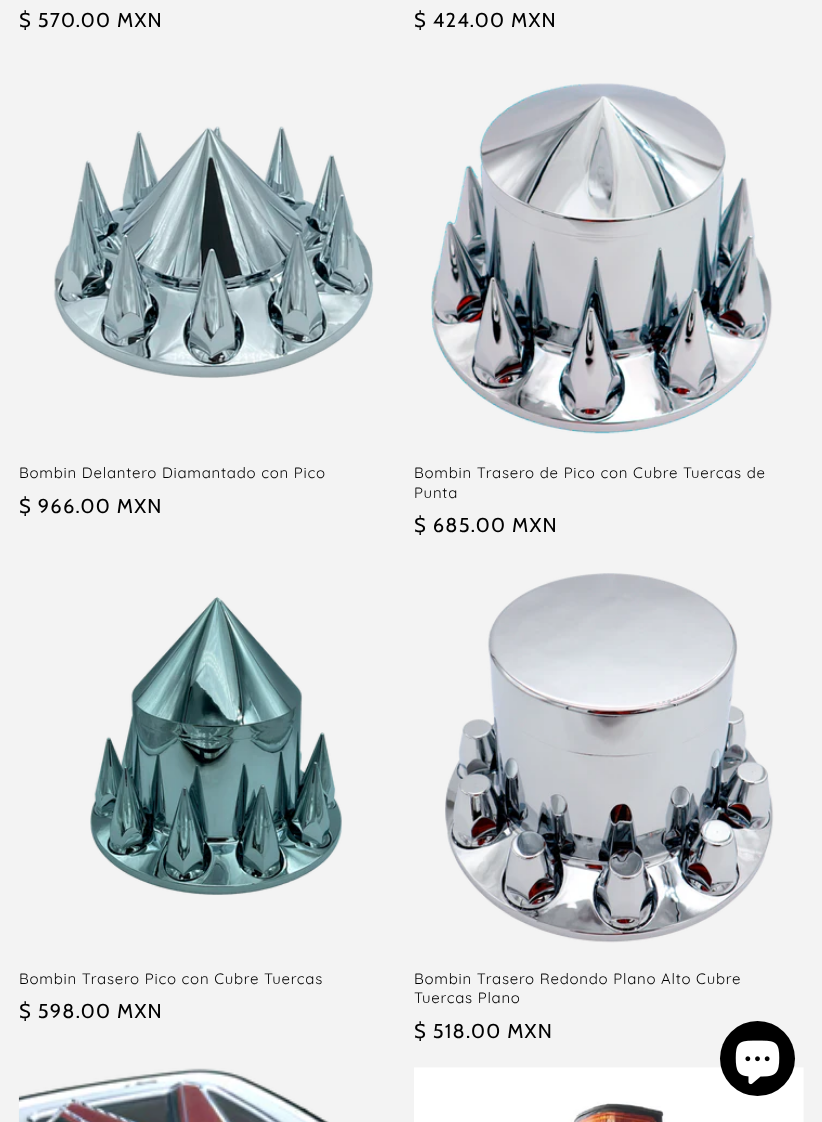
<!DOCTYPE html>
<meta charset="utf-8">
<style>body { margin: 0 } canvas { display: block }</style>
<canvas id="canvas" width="822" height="1122"></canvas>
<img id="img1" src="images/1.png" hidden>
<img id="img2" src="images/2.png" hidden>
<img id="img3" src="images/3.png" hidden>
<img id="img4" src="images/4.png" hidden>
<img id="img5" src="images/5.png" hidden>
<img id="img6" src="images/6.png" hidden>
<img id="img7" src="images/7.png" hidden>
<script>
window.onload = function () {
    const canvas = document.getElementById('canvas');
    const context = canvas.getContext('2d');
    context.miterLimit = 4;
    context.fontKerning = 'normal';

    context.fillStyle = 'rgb(243, 243, 243)';
    context.fillRect(0, 0, 822, 1122);
    context.drawImage(document.getElementById('img1'), 53, 126, 321, 252);
    context.drawImage(document.getElementById('img2'), 431, 83, 342, 351);
    context.drawImage(document.getElementById('img3'), 90, 596, 252, 299);
    context.drawImage(document.getElementById('img4'), 445, 573, 329, 370);
    context.drawImage(document.getElementById('img5'), 18, 1068, 311, 54);
    context.drawImage(document.getElementById('img6'), 414, 1067, 390, 55);
    context.fillStyle = 'rgb(0, 0, 0)';
    context.beginPath();
    context.arc(757.5, 1058.5, 37.5, 0, 2 * Math.PI);
    context.fill();
    context.drawImage(document.getElementById('img7'), 735, 1040, 45, 45);
    context.letterSpacing = '1.25px';
    context.font = '20px Cabin';
    context.fillText('$ 570.00 MXN', 19, 27);
    context.fillText('$ 424.00 MXN', 414, 27);
    context.letterSpacing = '0.75px';
    context.font = '15px Quicksand';
    context.fillText('Bombin Delantero Diamantado con Pico', 19, 478);
    context.letterSpacing = '1.25px';
    context.font = '20px Cabin';
    context.fillText('$ 966.00 MXN', 19, 513);
    context.letterSpacing = '0.75px';
    context.font = '15px Quicksand';
    context.fillText('Bombin Trasero de Pico con Cubre Tuercas de', 414, 478);
    context.fillText('Punta', 414, 498);
    context.letterSpacing = '1.25px';
    context.font = '20px Cabin';
    context.fillText('$ 685.00 MXN', 414, 532);
    context.letterSpacing = '0.75px';
    context.font = '15px Quicksand';
    context.fillText('Bombin Trasero Pico con Cubre Tuercas', 19, 984);
    context.letterSpacing = '1.25px';
    context.font = '20px Cabin';
    context.fillText('$ 598.00 MXN', 19, 1018);
    context.letterSpacing = '0.75px';
    context.font = '15px Quicksand';
    context.fillText('Bombin Trasero Redondo Plano Alto Cubre', 414, 984);
    context.fillText('Tuercas Plano', 414, 1003);
    context.letterSpacing = '1.25px';
    context.font = '20px Cabin';
    context.fillText('$ 518.00 MXN', 414, 1038);
};
</script>
